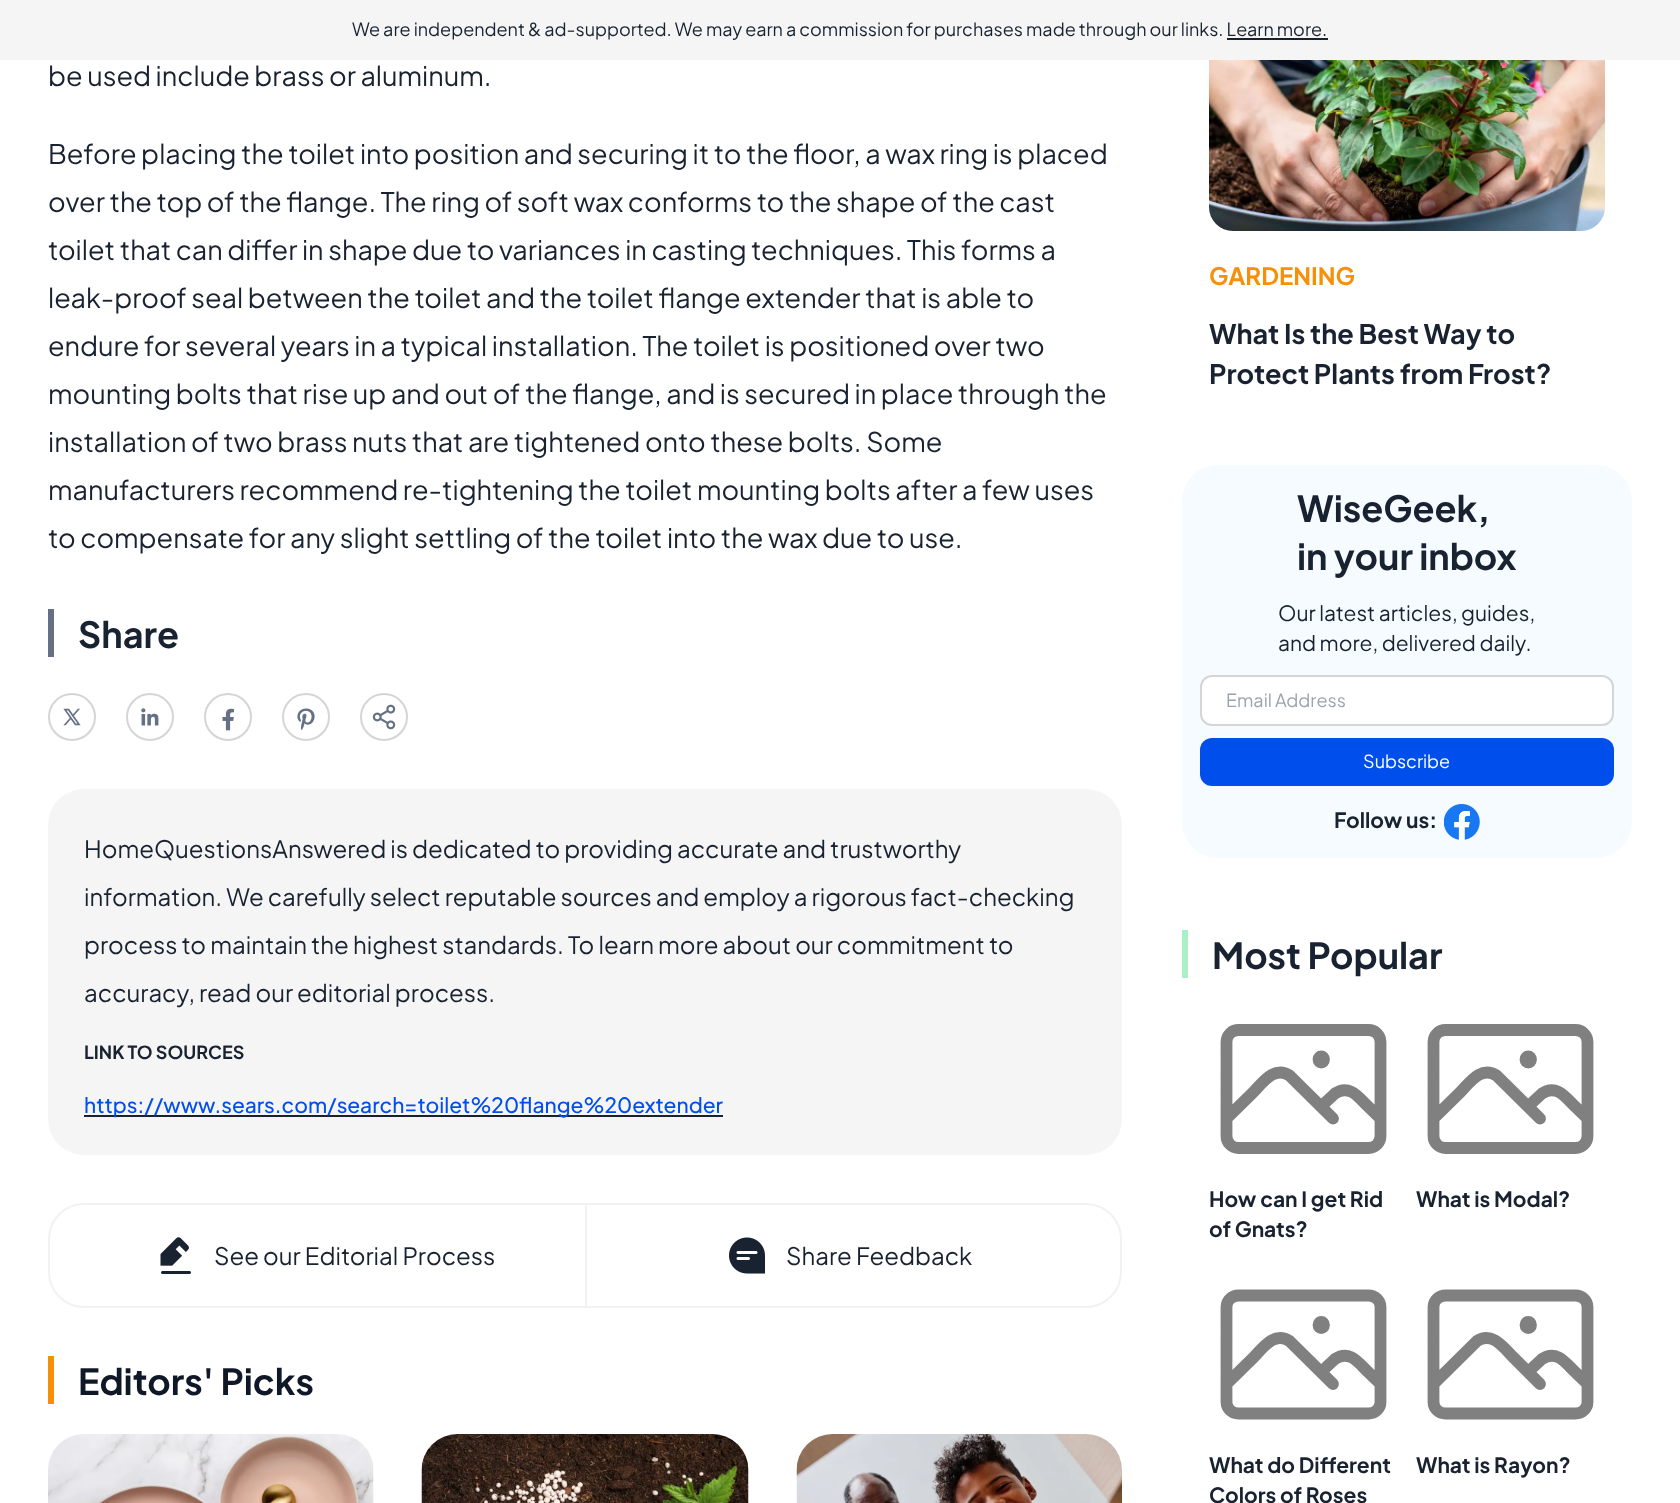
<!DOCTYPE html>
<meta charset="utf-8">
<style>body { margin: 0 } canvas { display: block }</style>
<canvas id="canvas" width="1680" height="1503"></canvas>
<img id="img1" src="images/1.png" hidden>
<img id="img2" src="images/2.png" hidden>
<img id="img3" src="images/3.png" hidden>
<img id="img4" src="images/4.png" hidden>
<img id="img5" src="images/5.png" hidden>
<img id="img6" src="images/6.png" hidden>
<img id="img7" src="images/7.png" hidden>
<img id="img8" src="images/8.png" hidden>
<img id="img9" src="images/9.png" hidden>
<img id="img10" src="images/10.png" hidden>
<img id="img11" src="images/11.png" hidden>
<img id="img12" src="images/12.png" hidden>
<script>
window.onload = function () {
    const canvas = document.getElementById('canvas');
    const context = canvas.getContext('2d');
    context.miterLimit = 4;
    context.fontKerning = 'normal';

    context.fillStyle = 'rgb(255, 255, 255)';
    context.fillRect(0, 0, 1680, 1503);
    context.fillStyle = 'rgb(245, 245, 245)';
    context.fillRect(0, 0, 1680, 60);
    context.fillStyle = 'rgb(24, 34, 48)';
    context.fillRect(1227, 38, 101, 2);
    context.fillStyle = 'rgb(102, 112, 133)';
    context.fillRect(48, 609, 6, 48);
    context.beginPath();
    context.arc(72, 717, 23, 0, 2 * Math.PI);
    context.strokeStyle = 'rgb(213, 213, 213)';
    context.lineWidth = 2;
    context.stroke();
    context.drawImage(document.getElementById('img1'), 63, 708, 18, 18);
    context.beginPath();
    context.arc(150, 717, 23, 0, 2 * Math.PI);
    context.stroke();
    context.drawImage(document.getElementById('img2'), 141, 708, 18, 18);
    context.beginPath();
    context.arc(228, 717, 23, 0, 2 * Math.PI);
    context.stroke();
    context.drawImage(document.getElementById('img3'), 222, 708, 12, 23);
    context.beginPath();
    context.arc(306, 717, 23, 0, 2 * Math.PI);
    context.stroke();
    context.drawImage(document.getElementById('img4'), 297, 708, 18, 22);
    context.beginPath();
    context.arc(384, 717, 23, 0, 2 * Math.PI);
    context.stroke();
    context.drawImage(document.getElementById('img5'), 372, 704, 24, 26);
    context.fillStyle = 'rgb(245, 245, 245)';
    context.beginPath();
    context.roundRect(48, 789, 1074, 366, 36);
    context.fill();
    context.fillStyle = 'rgb(24, 34, 48)';
    context.fillRect(84, 1115, 639, 2);
    context.beginPath();
    context.roundRect(49, 1204, 1072, 103, 35);
    context.strokeStyle = 'rgb(242, 242, 242)';
    context.stroke();
    context.drawImage(document.getElementById('img6'), 160, 1237, 31, 37);
    context.fillStyle = 'rgb(242, 242, 242)';
    context.fillRect(585, 1205, 2, 102);
    context.drawImage(document.getElementById('img7'), 729, 1237, 36, 37);
    context.fillStyle = 'rgb(247, 144, 9)';
    context.fillRect(48, 1356, 6, 48);
    context.drawImage(document.getElementById('img8'), 48, 1434, 326, 69);
    context.drawImage(document.getElementById('img9'), 421, 1434, 328, 69);
    context.drawImage(document.getElementById('img10'), 796, 1434, 326, 69);
    context.drawImage(document.getElementById('img11'), 1209, 60, 396, 171);
    context.fillStyle = 'rgb(245, 251, 255)';
    context.beginPath();
    context.roundRect(1182, 465, 450, 393, 36);
    context.fill();
    context.fillStyle = 'rgb(255, 255, 255)';
    context.beginPath();
    context.roundRect(1201, 676, 412, 49, 11);
    context.fill();
    context.strokeStyle = 'rgb(213, 213, 213)';
    context.stroke();
    context.fillStyle = 'rgb(0, 78, 235)';
    context.beginPath();
    context.roundRect(1200, 738, 414, 48, 12);
    context.fill();
    context.drawImage(document.getElementById('img12'), 1444, 804, 36, 36);
    context.fillStyle = 'rgb(171, 239, 198)';
    context.fillRect(1182, 930, 6, 48);
    context.beginPath();
    context.moveTo(1226.5, 1118.5);
    context.lineTo(1254, 1091.5);
    context.bezierCurveTo(1263, 1082, 1274.5, 1065.5, 1289.5, 1075.5);
    context.lineTo(1333, 1118.5);
    context.moveTo(1321, 1106.5);
    context.lineTo(1335, 1093.5);
    context.bezierCurveTo(1348, 1085, 1356.5, 1094.5, 1365, 1103.5);
    context.lineTo(1380.5, 1118.5);
    context.moveTo(1238.5, 1148);
    context.lineTo(1368.5, 1148);
    context.bezierCurveTo(1375, 1148, 1380.5, 1143, 1380.5, 1136);
    context.lineTo(1380.5, 1042);
    context.bezierCurveTo(1380.5, 1035, 1375, 1030, 1368.5, 1030);
    context.lineTo(1238.5, 1030);
    context.bezierCurveTo(1232, 1030, 1226.5, 1035, 1226.5, 1042);
    context.lineTo(1226.5, 1136);
    context.bezierCurveTo(1226.5, 1143, 1232, 1148, 1238.5, 1148);
    context.closePath();
    context.moveTo(1321, 1059.5);
    context.lineTo(1321, 1059.5);
    context.closePath();
    context.moveTo(1324, 1059.5);
    context.bezierCurveTo(1324, 1063.5, 1318.5, 1063.5, 1318.5, 1059.5);
    context.bezierCurveTo(1318.5, 1055.5, 1324, 1055.5, 1324, 1059.5);
    context.closePath();
    context.strokeStyle = 'rgb(128, 128, 128)';
    context.lineWidth = 11.8;
    context.lineCap = 'round';
    context.lineJoin = 'round';
    context.stroke();
    context.beginPath();
    context.moveTo(1433.5, 1118.5);
    context.lineTo(1461, 1091.5);
    context.bezierCurveTo(1470, 1082, 1481.5, 1065.5, 1496.5, 1075.5);
    context.lineTo(1540, 1118.5);
    context.moveTo(1528, 1106.5);
    context.lineTo(1542, 1093.5);
    context.bezierCurveTo(1555, 1085, 1563.5, 1094.5, 1572, 1103.5);
    context.lineTo(1587.5, 1118.5);
    context.moveTo(1445.5, 1148);
    context.lineTo(1575.5, 1148);
    context.bezierCurveTo(1582, 1148, 1587.5, 1143, 1587.5, 1136);
    context.lineTo(1587.5, 1042);
    context.bezierCurveTo(1587.5, 1035, 1582, 1030, 1575.5, 1030);
    context.lineTo(1445.5, 1030);
    context.bezierCurveTo(1439, 1030, 1433.5, 1035, 1433.5, 1042);
    context.lineTo(1433.5, 1136);
    context.bezierCurveTo(1433.5, 1143, 1439, 1148, 1445.5, 1148);
    context.closePath();
    context.moveTo(1528, 1059.5);
    context.lineTo(1528, 1059.5);
    context.closePath();
    context.moveTo(1531, 1059.5);
    context.bezierCurveTo(1531, 1063.5, 1525.5, 1063.5, 1525.5, 1059.5);
    context.bezierCurveTo(1525.5, 1055.5, 1531, 1055.5, 1531, 1059.5);
    context.closePath();
    context.stroke();
    context.beginPath();
    context.moveTo(1226.5, 1384);
    context.lineTo(1254, 1357);
    context.bezierCurveTo(1263, 1347.5, 1274.5, 1331, 1289.5, 1341);
    context.lineTo(1333, 1384);
    context.moveTo(1321, 1372);
    context.lineTo(1335, 1359);
    context.bezierCurveTo(1348, 1350.5, 1356.5, 1360, 1365, 1369);
    context.lineTo(1380.5, 1384);
    context.moveTo(1238.5, 1413.5);
    context.lineTo(1368.5, 1413.5);
    context.bezierCurveTo(1375, 1413.5, 1380.5, 1408.5, 1380.5, 1402);
    context.lineTo(1380.5, 1307);
    context.bezierCurveTo(1380.5, 1300.5, 1375, 1295.5, 1368.5, 1295.5);
    context.lineTo(1238.5, 1295.5);
    context.bezierCurveTo(1232, 1295.5, 1226.5, 1300.5, 1226.5, 1307);
    context.lineTo(1226.5, 1402);
    context.bezierCurveTo(1226.5, 1408.5, 1232, 1413.5, 1238.5, 1413.5);
    context.closePath();
    context.moveTo(1321, 1325);
    context.lineTo(1321, 1325);
    context.closePath();
    context.moveTo(1324, 1325);
    context.bezierCurveTo(1324, 1329, 1318.5, 1329, 1318.5, 1325);
    context.bezierCurveTo(1318.5, 1321, 1324, 1321, 1324, 1325);
    context.closePath();
    context.stroke();
    context.beginPath();
    context.moveTo(1433.5, 1384);
    context.lineTo(1477, 1341);
    context.bezierCurveTo(1492, 1331, 1503.5, 1347.5, 1513, 1357);
    context.lineTo(1540, 1384);
    context.moveTo(1528, 1372);
    context.lineTo(1542, 1359);
    context.bezierCurveTo(1555, 1350.5, 1563.5, 1360, 1572, 1369);
    context.lineTo(1587.5, 1384);
    context.moveTo(1445.5, 1413.5);
    context.lineTo(1575.5, 1413.5);
    context.bezierCurveTo(1582, 1413.5, 1587.5, 1408.5, 1587.5, 1402);
    context.lineTo(1587.5, 1307);
    context.bezierCurveTo(1587.5, 1300.5, 1582, 1295.5, 1575.5, 1295.5);
    context.lineTo(1445.5, 1295.5);
    context.bezierCurveTo(1439, 1295.5, 1433.5, 1300.5, 1433.5, 1307);
    context.lineTo(1433.5, 1402);
    context.bezierCurveTo(1433.5, 1408.5, 1439, 1413.5, 1445.5, 1413.5);
    context.closePath();
    context.moveTo(1528, 1325);
    context.lineTo(1528, 1325);
    context.closePath();
    context.moveTo(1531, 1325);
    context.bezierCurveTo(1531, 1329, 1525.5, 1329, 1525.5, 1325);
    context.bezierCurveTo(1525.5, 1321, 1531, 1321, 1531, 1325);
    context.closePath();
    context.stroke();
    context.font = '18px Plus Jakarta Sans';
    context.fillStyle = 'rgb(24, 34, 48)';
    context.fillText('We are independent & ad-supported. We may earn a commission for purchases made through our links. Learn more.', 352, 36);
    context.font = '27px Plus Jakarta Sans';
    context.fillText('be used include brass or aluminum.', 48, 86);
    context.fillText('Before placing the toilet into position and securing it to the floor, a wax ring is placed', 48, 164);
    context.fillText('over the top of the flange. The ring of soft wax conforms to the shape of the cast', 48, 212);
    context.fillText('toilet that can differ in shape due to variances in casting techniques. This forms a', 48, 260);
    context.fillText('leak-proof seal between the toilet and the toilet flange extender that is able to', 48, 308);
    context.fillText('endure for several years in a typical installation. The toilet is positioned over two', 48, 356);
    context.fillText('mounting bolts that rise up and out of the flange, and is secured in place through the', 48, 404);
    context.fillText('installation of two brass nuts that are tightened onto these bolts. Some', 48, 452);
    context.fillText('manufacturers recommend re-tightening the toilet mounting bolts after a few uses', 48, 500);
    context.fillText('to compensate for any slight settling of the toilet into the wax due to use.', 48, 548);
    context.font = 'bold 36px Plus Jakarta Sans';
    context.fillText('Share', 78, 648);
    context.font = '24px Plus Jakarta Sans';
    context.fillText('HomeQuestionsAnswered is dedicated to providing accurate and trustworthy', 84, 858);
    context.fillText('information. We carefully select reputable sources and employ a rigorous fact-checking', 84, 906);
    context.fillText('process to maintain the highest standards. To learn more about our commitment to', 84, 954);
    context.fillText('accuracy, read our editorial process.', 84, 1002);
    context.font = 'bold 18px Plus Jakarta Sans';
    context.fillText('LINK TO SOURCES', 84, 1059);
    context.font = '500 21px Plus Jakarta Sans';
    context.fillStyle = 'rgb(0, 78, 235)';
    context.fillText('https://www.sears.com/search=toilet%20flange%20extender', 84, 1113);
    context.font = '24px Plus Jakarta Sans';
    context.fillStyle = 'rgb(24, 34, 48)';
    context.fillText('See our Editorial Process', 214, 1265);
    context.fillText('Share Feedback', 786, 1265);
    context.font = 'bold 36px Plus Jakarta Sans';
    context.fillStyle = 'rgb(16, 24, 40)';
    context.fillText('Editors\' Picks', 78, 1395);
    context.font = 'bold 24px Plus Jakarta Sans';
    context.fillStyle = 'rgb(247, 144, 9)';
    context.fillText('GARDENING', 1209, 285);
    context.font = 'bold 27px Plus Jakarta Sans';
    context.fillStyle = 'rgb(24, 34, 48)';
    context.fillText('What Is the Best Way to', 1209, 344);
    context.fillText('Protect Plants from Frost?', 1209, 384);
    context.font = 'bold 36px Plus Jakarta Sans';
    context.fillText('WiseGeek,', 1297, 522);
    context.fillText('in your inbox', 1297, 570);
    context.font = '21px Plus Jakarta Sans';
    context.fillText('Our latest articles, guides,', 1278, 621);
    context.fillText('and more, delivered daily.', 1278, 651);
    context.font = '18px Plus Jakarta Sans';
    context.fillStyle = 'rgb(156, 163, 175)';
    context.fillText('Email Address', 1226, 707);
    context.fillStyle = 'rgb(255, 255, 255)';
    context.fillText('Subscribe', 1363, 768);
    context.font = 'bold 21px Plus Jakarta Sans';
    context.fillStyle = 'rgb(24, 34, 48)';
    context.fillText('Follow us:', 1334, 828);
    context.font = 'bold 36px Plus Jakarta Sans';
    context.fillText('Most Popular', 1212, 969);
    context.font = 'bold 21px Plus Jakarta Sans';
    context.fillText('How can I get Rid', 1209, 1207);
    context.fillText('of Gnats?', 1209, 1237);
    context.fillText('What is Modal?', 1416, 1207);
    context.fillText('What do Different', 1209, 1473);
    context.fillText('Colors of Roses', 1209, 1503);
    context.fillText('What is Rayon?', 1416, 1473);
};
</script>
